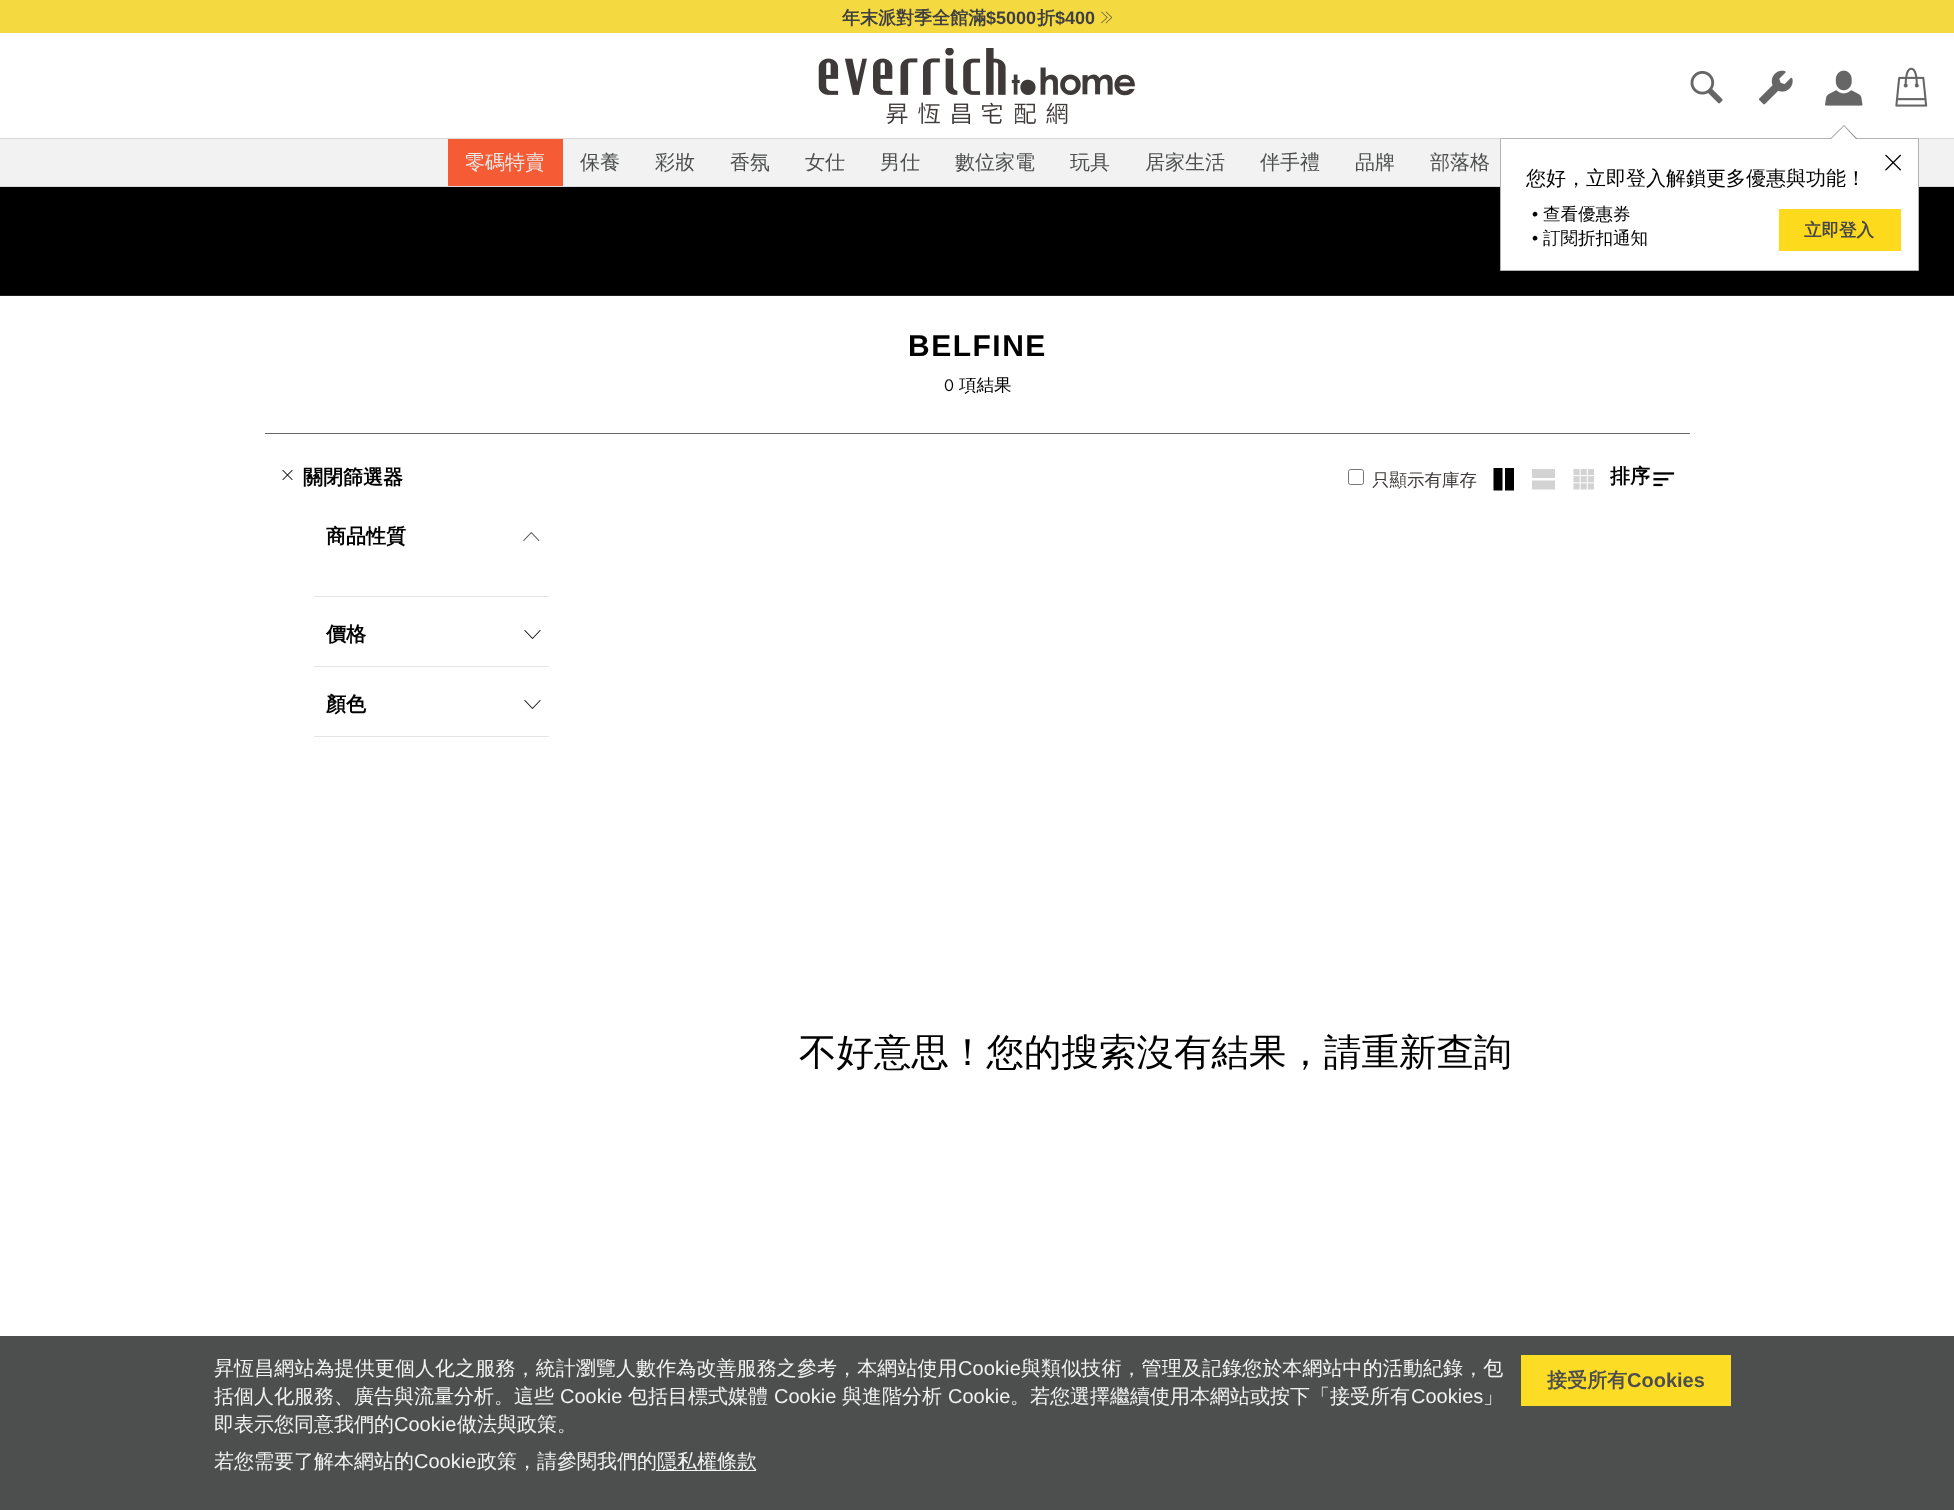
<!DOCTYPE html>
<meta charset="utf-8">
<style>body { margin: 0 } canvas { display: block }</style>
<canvas id="canvas" width="1954" height="1510"></canvas>
<img id="img1" src="images/1.png" hidden>
<img id="img2" src="images/2.png" hidden>
<img id="img3" src="images/3.png" hidden>
<img id="img4" src="images/4.png" hidden>
<img id="img5" src="images/5.png" hidden>
<img id="img6" src="images/6.png" hidden>
<img id="img7" src="images/7.png" hidden>
<img id="img8" src="images/8.png" hidden>
<img id="img9" src="images/9.png" hidden>
<img id="img10" src="images/10.png" hidden>
<img id="img11" src="images/11.png" hidden>
<img id="img12" src="images/12.png" hidden>
<script>
window.onload = function () {
    const canvas = document.getElementById('canvas');
    const context = canvas.getContext('2d');
    context.miterLimit = 4;
    context.fontKerning = 'normal';

    context.fillStyle = 'rgb(255, 255, 255)';
    context.fillRect(0, 0, 1954, 1510);
    context.fillStyle = 'rgb(245, 217, 65)';
    context.fillRect(0, 0, 1954, 33);
    context.drawImage(document.getElementById('img1'), 1101, 11, 12, 13);
    context.drawImage(document.getElementById('img2'), 818, 48, 317, 76);
    context.fillStyle = 'rgb(242, 242, 242)';
    context.fillRect(0, 139, 1954, 47);
    context.fillStyle = 'rgb(217, 217, 217)';
    context.fillRect(0, 138, 1954, 1);
    context.fillStyle = 'rgb(245, 91, 53)';
    context.fillRect(448, 139, 115, 47);
    context.fillStyle = 'rgb(0, 0, 0)';
    context.fillRect(0, 187, 1954, 108);
    context.fillStyle = 'rgb(217, 217, 217)';
    context.fillRect(0, 186, 1954, 1);
    context.fillStyle = 'rgb(29, 29, 29)';
    context.fillRect(0, 295, 1954, 1);
    context.drawImage(document.getElementById('img3'), 1690, 70, 33, 34);
    context.drawImage(document.getElementById('img4'), 1759, 70, 34, 35);
    context.drawImage(document.getElementById('img5'), 1895, 67, 33, 40);
    context.drawImage(document.getElementById('img6'), 1825, 70, 38, 36);
    context.fillStyle = 'rgb(255, 255, 255)';
    context.beginPath();
    context.rect(1500.5, 138.5, 418, 132);
    context.fill();
    context.strokeStyle = 'rgb(179, 179, 179)';
    context.stroke();
    context.fillStyle = 'rgb(140, 140, 140)';
    context.beginPath();
    context.moveTo(1857.5, 139);
    context.lineTo(1830, 139);
    context.lineTo(1844, 125);
    context.closePath();
    context.fill();
    context.fillStyle = 'rgb(255, 255, 255)';
    context.beginPath();
    context.moveTo(1856, 139);
    context.lineTo(1831, 139);
    context.lineTo(1844, 126);
    context.closePath();
    context.fill();
    context.drawImage(document.getElementById('img7'), 1885, 154, 16, 17);
    context.fillStyle = 'rgb(253, 218, 27)';
    context.fillRect(1779, 209, 122, 42);
    context.fillStyle = 'rgb(102, 102, 102)';
    context.fillRect(265, 433, 1425, 1);
    context.drawImage(document.getElementById('img8'), 282, 470, 11, 10);
    context.beginPath();
    context.roundRect(1348.5, 469.5, 15, 15, 2);
    context.strokeStyle = 'rgb(118, 118, 118)';
    context.stroke();
    context.fillStyle = 'rgb(0, 0, 0)';
    context.beginPath();
    context.moveTo(1505, 468);
    context.lineTo(1514, 468);
    context.lineTo(1514, 490.5);
    context.lineTo(1505, 490.5);
    context.closePath();
    context.moveTo(1493.5, 468);
    context.lineTo(1502.5, 468);
    context.lineTo(1502.5, 490.5);
    context.lineTo(1493.5, 490.5);
    context.closePath();
    context.fill();
    context.fillStyle = 'rgb(211, 211, 211)';
    context.beginPath();
    context.moveTo(1532, 469);
    context.lineTo(1555, 469);
    context.lineTo(1555, 478);
    context.lineTo(1532, 478);
    context.closePath();
    context.moveTo(1532, 480.5);
    context.lineTo(1555, 480.5);
    context.lineTo(1555, 489.5);
    context.lineTo(1532, 489.5);
    context.closePath();
    context.fill();
    context.drawImage(document.getElementById('img9'), 1573, 469, 21, 21);
    context.drawImage(document.getElementById('img10'), 1653, 472, 22, 15);
    context.fillStyle = 'rgb(229, 229, 229)';
    context.fillRect(314, 596, 235, 1);
    context.drawImage(document.getElementById('img11'), 523, 532, 17, 9);
    context.fillRect(314, 666, 235, 1);
    context.drawImage(document.getElementById('img12'), 524, 630, 17, 9);
    context.fillRect(314, 736, 235, 1);
    context.drawImage(document.getElementById('img12'), 524, 700, 17, 9);
    context.fillStyle = 'rgb(77, 78, 78)';
    context.fillRect(0, 1336, 1954, 174);
    context.fillStyle = 'rgb(253, 220, 38)';
    context.fillRect(1521, 1355, 210, 51);
    context.fillStyle = 'rgb(242, 242, 242)';
    context.fillRect(656, 1470, 100, 1);
    context.font = 'bold 18px WenQuanYi Zen Hei';
    context.fillStyle = 'rgb(64, 64, 64)';
    context.fillText('年末派對季全館滿', 842, 24);
    context.font = 'bold 18px Liberation Sans';
    context.fillText('$5000', 986, 24);
    context.font = 'bold 18px WenQuanYi Zen Hei';
    context.fillText('折', 1037, 24);
    context.font = 'bold 18px Liberation Sans';
    context.fillText('$400', 1055, 24);
    context.font = '500 20px WenQuanYi Zen Hei';
    context.fillStyle = 'rgb(234, 234, 234)';
    context.fillText('零碼特賣', 465, 169);
    context.fillStyle = 'rgb(77, 78, 78)';
    context.fillText('保養', 580, 169);
    context.fillText('彩妝', 655, 169);
    context.fillText('香氛', 730, 169);
    context.fillText('女仕', 805, 169);
    context.fillText('男仕', 880, 169);
    context.fillText('數位家電', 955, 169);
    context.fillText('玩具', 1070, 169);
    context.fillText('居家生活', 1145, 169);
    context.fillText('伴手禮', 1260, 169);
    context.fillText('品牌', 1355, 169);
    context.fillText('部落格', 1430, 169);
    context.fillStyle = 'rgb(0, 0, 0)';
    context.fillText('您好，立即登入解鎖更多優惠與功能！', 1526, 185);
    context.font = '17.5px Liberation Sans';
    context.fillText('•', 1532, 220);
    context.font = '500 17.5px WenQuanYi Zen Hei';
    context.fillText('查看優惠券', 1543, 220);
    context.font = '17.5px Liberation Sans';
    context.fillText('•', 1532, 244);
    context.font = '500 17.5px WenQuanYi Zen Hei';
    context.fillText('訂閱折扣通知', 1543, 244);
    context.font = 'bold 17.5px WenQuanYi Zen Hei';
    context.fillStyle = 'rgb(73, 72, 72)';
    context.fillText('立即登入', 1804, 236);
    context.letterSpacing = '1.5px';
    context.font = 'bold 30px Liberation Sans';
    context.fillStyle = 'rgb(0, 0, 0)';
    context.fillText('BELFINE', 908, 356);
    context.letterSpacing = '0px';
    context.font = '17.5px Futura PT';
    context.fillText('0', 944, 391);
    context.font = '500 17.5px WenQuanYi Zen Hei';
    context.fillText('項結果', 959, 391);
    context.font = 'bold 20px WenQuanYi Zen Hei';
    context.fillText('關閉篩選器', 303, 484);
    context.font = '500 17.5px WenQuanYi Zen Hei';
    context.fillStyle = 'rgb(62, 58, 57)';
    context.fillText('只顯示有庫存', 1372, 486);
    context.font = 'bold 20px WenQuanYi Zen Hei';
    context.fillStyle = 'rgb(0, 0, 0)';
    context.fillText('排序', 1610, 483);
    context.fillText('商品性質', 326, 543);
    context.fillText('價格', 326, 641);
    context.fillText('顏色', 326, 711);
    context.font = '500 37.5px WenQuanYi Zen Hei';
    context.fillText('不好意思！您的搜索沒有結果，請重新查詢', 799, 1065);
    context.letterSpacing = '0.1px';
    context.font = '500 20px WenQuanYi Zen Hei';
    context.fillStyle = 'rgb(242, 242, 242)';
    context.fillText('昇恆昌網站為提供更個人化之服務，統計瀏覽人數作為改善服務之參考，本網站使用', 214, 1375);
    context.font = '20px Liberation Sans';
    context.fillText('Cookie', 958, 1375);
    context.font = '500 20px WenQuanYi Zen Hei';
    context.fillText('與類似技術，管理及記錄您於本網站中的活動紀錄，包', 1021, 1375);
    context.letterSpacing = '0px';
    context.fillText('括個人化服務、廣告與流量分析。這些', 214, 1403);
    context.font = '20px Liberation Sans';
    context.fillText('Cookie', 560, 1403);
    context.font = '500 20px WenQuanYi Zen Hei';
    context.fillText('包括目標式媒體', 628, 1403);
    context.font = '20px Liberation Sans';
    context.fillText('Cookie', 774, 1403);
    context.font = '500 20px WenQuanYi Zen Hei';
    context.fillText('與進階分析', 842, 1403);
    context.font = '20px Liberation Sans';
    context.fillText('Cookie', 948, 1403);
    context.font = '500 20px WenQuanYi Zen Hei';
    context.fillText('。若您選擇繼續使用本網站或按下「接受所有', 1010, 1403);
    context.font = '20px Liberation Sans';
    context.fillText('Cookies', 1411, 1403);
    context.font = '500 20px WenQuanYi Zen Hei';
    context.fillText('」', 1483, 1403);
    context.fillText('即表示您同意我們的', 214, 1431);
    context.font = '20px Liberation Sans';
    context.fillText('Cookie', 394, 1431);
    context.font = '500 20px WenQuanYi Zen Hei';
    context.fillText('做法與政策。', 457, 1431);
    context.font = 'bold 20px WenQuanYi Zen Hei';
    context.fillStyle = 'rgb(77, 78, 78)';
    context.fillText('接受所有', 1547, 1387);
    context.font = 'bold 20px Liberation Sans';
    context.fillText('Cookies', 1627, 1387);
    context.font = '500 20px WenQuanYi Zen Hei';
    context.fillStyle = 'rgb(242, 242, 242)';
    context.fillText('若您需要了解本網站的', 214, 1468);
    context.font = '20px Liberation Sans';
    context.fillText('Cookie', 414, 1468);
    context.font = '500 20px WenQuanYi Zen Hei';
    context.fillText('政策，請參閱我們的', 477, 1468);
    context.fillText('隱私權條款', 657, 1468);
};
</script>
